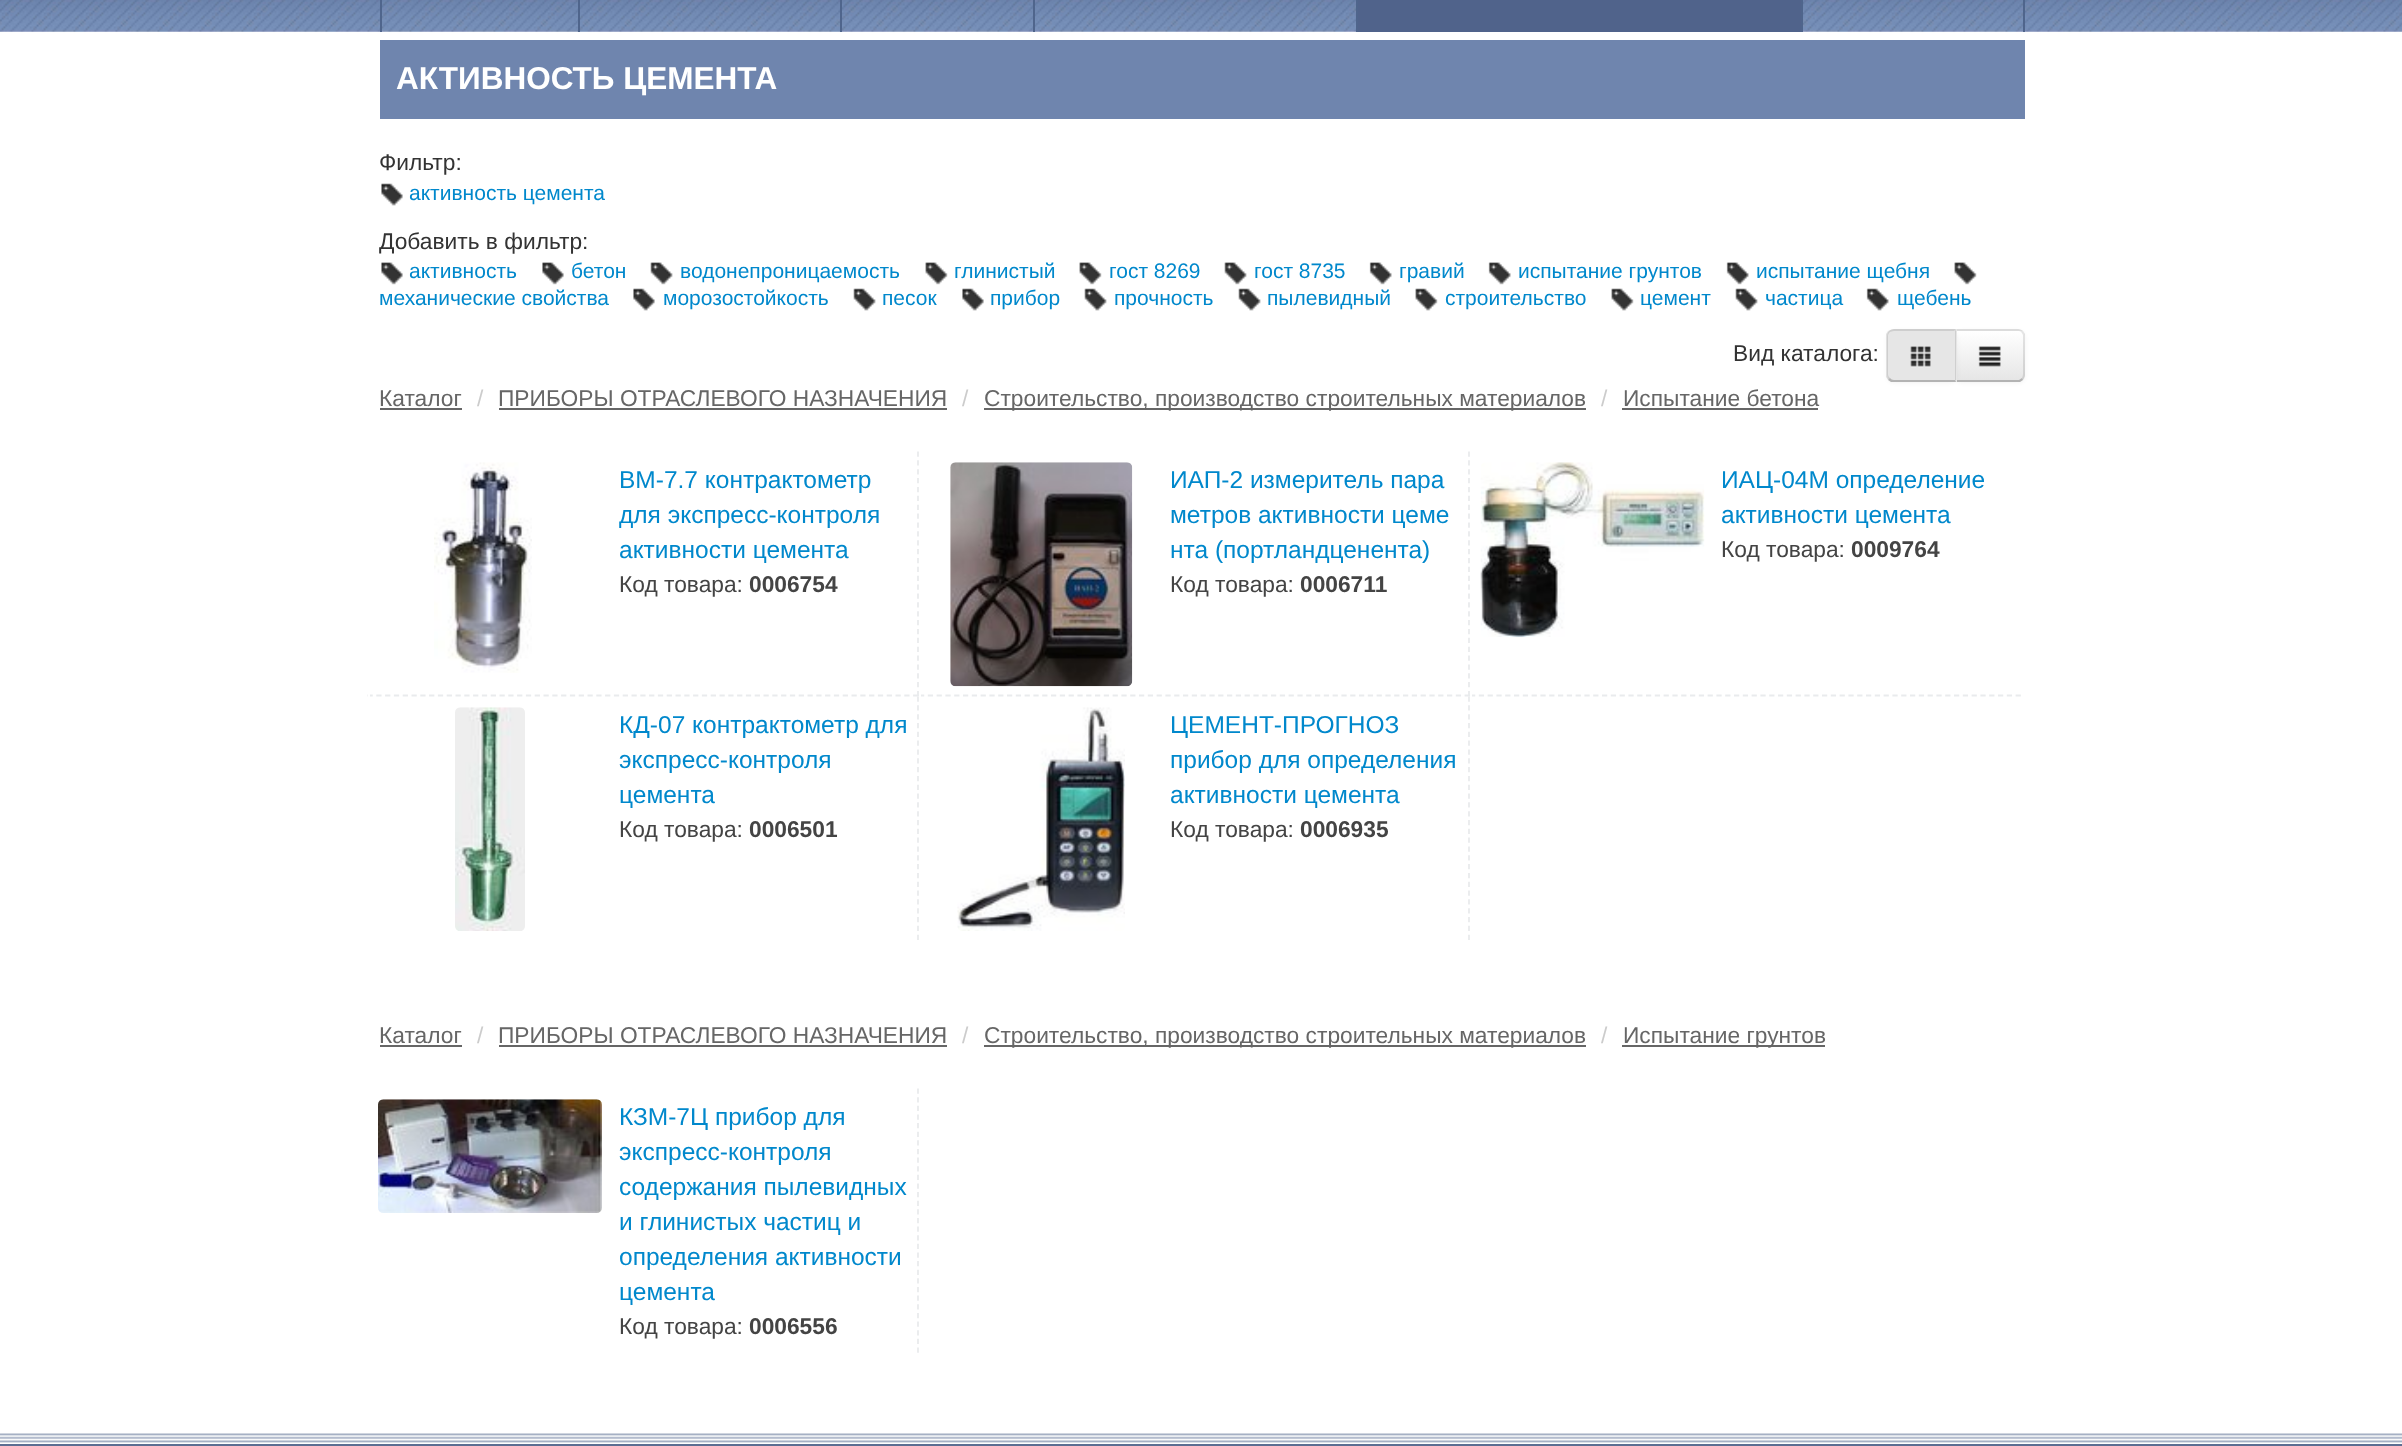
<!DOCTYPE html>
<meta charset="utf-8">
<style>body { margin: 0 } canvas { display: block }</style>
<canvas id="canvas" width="2402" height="1446"></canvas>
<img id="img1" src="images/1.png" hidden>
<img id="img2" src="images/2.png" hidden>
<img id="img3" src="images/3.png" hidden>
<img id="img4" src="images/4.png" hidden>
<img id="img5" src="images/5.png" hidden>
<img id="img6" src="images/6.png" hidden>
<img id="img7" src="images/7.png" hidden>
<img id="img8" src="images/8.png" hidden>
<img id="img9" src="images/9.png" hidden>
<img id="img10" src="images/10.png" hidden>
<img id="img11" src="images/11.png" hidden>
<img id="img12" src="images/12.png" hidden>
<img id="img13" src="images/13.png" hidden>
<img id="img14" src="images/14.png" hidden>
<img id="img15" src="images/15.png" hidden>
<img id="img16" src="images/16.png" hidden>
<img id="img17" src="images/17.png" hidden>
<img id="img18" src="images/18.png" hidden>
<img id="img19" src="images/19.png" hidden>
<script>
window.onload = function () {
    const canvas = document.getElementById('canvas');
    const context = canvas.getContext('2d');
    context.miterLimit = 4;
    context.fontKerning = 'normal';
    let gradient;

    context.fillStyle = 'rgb(255, 255, 255)';
    context.fillRect(0, 0, 2402, 1446);
    context.drawImage(document.getElementById('img1'), 0, 0, 2402, 32);
    context.fillStyle = 'rgb(79, 101, 140)';
    context.fillRect(578, 0, 2, 32);
    context.fillRect(380, 0, 2, 32);
    context.fillRect(840, 0, 2, 32);
    context.fillRect(1033, 0, 2, 32);
    context.fillRect(1356, 0, 2, 32);
    context.fillStyle = 'rgb(80, 99, 139)';
    context.fillRect(1358, 0, 443, 32);
    context.fillStyle = 'rgb(79, 101, 140)';
    context.fillRect(1801, 0, 2, 32);
    context.fillRect(2023, 0, 2, 32);
    context.fillStyle = 'rgb(111, 133, 174)';
    context.fillRect(380, 40, 1645, 79);
    context.drawImage(document.getElementById('img2'), 381, 183, 22, 23);
    context.drawImage(document.getElementById('img3'), 381, 262, 22, 23);
    context.drawImage(document.getElementById('img3'), 542, 262, 22, 23);
    context.drawImage(document.getElementById('img4'), 650, 262, 23, 23);
    context.drawImage(document.getElementById('img5'), 925, 262, 23, 23);
    context.drawImage(document.getElementById('img5'), 1079, 262, 23, 23);
    context.drawImage(document.getElementById('img4'), 1224, 262, 23, 23);
    context.drawImage(document.getElementById('img6'), 1369, 262, 23, 23);
    context.drawImage(document.getElementById('img7'), 1488, 262, 23, 23);
    context.drawImage(document.getElementById('img6'), 1726, 262, 23, 23);
    context.drawImage(document.getElementById('img5'), 1954, 262, 23, 23);
    context.drawImage(document.getElementById('img2'), 633, 288, 22, 23);
    context.drawImage(document.getElementById('img8'), 853, 288, 23, 23);
    context.drawImage(document.getElementById('img2'), 962, 288, 22, 23);
    context.drawImage(document.getElementById('img8'), 1084, 288, 23, 23);
    context.drawImage(document.getElementById('img8'), 1238, 288, 23, 23);
    context.drawImage(document.getElementById('img9'), 1415, 288, 23, 23);
    context.drawImage(document.getElementById('img9'), 1611, 288, 23, 23);
    context.drawImage(document.getElementById('img8'), 1735, 288, 23, 23);
    context.drawImage(document.getElementById('img10'), 1866, 288, 23, 23);
    context.fillStyle = 'rgba(0, 0, 0, 0.05)';
    context.filter = 'blur(2px)';
    context.beginPath();
    context.roundRect(1955, 331, 70, 52, 7);
    context.fill();
    context.filter = 'none';
    context.fillStyle = 'rgb(245, 245, 245)';
    context.beginPath();
    context.roundRect(1955, 329, 70, 53, [0, 7, 7, 0]);
    context.fill();
    context.save();
    context.beginPath();
    context.roundRect(1955, 329, 70, 53, [0, 7, 7, 0]);
    context.clip();
    gradient = context.createLinearGradient(1990, 331, 1990, 380);
    gradient.addColorStop(0, 'rgb(255, 255, 255)');
    gradient.addColorStop(1, 'rgb(230, 230, 230)');
    context.fillStyle = gradient;
    context.fillRect(1957, 331, 68, 49);
    context.restore();
    context.fillStyle = 'rgba(0, 0, 0, 0.1)';
    context.beginPath();
    context.moveTo(1955, 329);
    context.lineTo(1957, 331);
    context.lineTo(2018, 331);
    context.bezierCurveTo(2019, 331, 2021, 331, 2021, 332);
    context.lineTo(2023, 331);
    context.bezierCurveTo(2022, 330, 2020, 329, 2018, 329);
    context.closePath();
    context.fill();
    context.beginPath();
    context.moveTo(2025, 376);
    context.lineTo(2023, 380);
    context.lineTo(2022, 378);
    context.bezierCurveTo(2022, 377, 2023, 376, 2023, 374);
    context.lineTo(2023, 336);
    context.bezierCurveTo(2023, 334, 2022, 333, 2021, 332);
    context.lineTo(2023, 331);
    context.lineTo(2025, 334);
    context.closePath();
    context.fill();
    context.fillStyle = 'rgb(179, 179, 179)';
    context.beginPath();
    context.moveTo(1955, 382);
    context.lineTo(1956, 380);
    context.lineTo(2019, 380);
    context.lineTo(2022, 378);
    context.lineTo(2023, 380);
    context.lineTo(2020, 382);
    context.closePath();
    context.fill();
    context.fillStyle = 'rgba(0, 0, 0, 0.05)';
    context.filter = 'blur(2px)';
    context.beginPath();
    context.roundRect(1887, 331, 70, 52, 7);
    context.fill();
    context.filter = 'none';
    context.fillStyle = 'rgb(230, 230, 230)';
    context.beginPath();
    context.roundRect(1887, 329, 70, 53, [7, 0, 0, 7]);
    context.fill();
    context.fillStyle = 'rgba(0, 0, 0, 0.1)';
    context.beginPath();
    context.moveTo(1894, 329);
    context.bezierCurveTo(1892, 329, 1890, 330, 1888, 331);
    context.lineTo(1890, 332);
    context.bezierCurveTo(1891, 332, 1892, 331, 1894, 331);
    context.lineTo(1954, 331);
    context.lineTo(1956, 329);
    context.closePath();
    context.fill();
    context.fillStyle = 'rgb(207, 207, 207)';
    context.beginPath();
    context.moveTo(1956, 330);
    context.lineTo(1956, 381);
    context.lineTo(1955, 380);
    context.lineTo(1955, 331);
    context.lineTo(1954, 331);
    context.closePath();
    context.fill();
    context.fillStyle = 'rgb(179, 179, 179)';
    context.beginPath();
    context.moveTo(1891, 382);
    context.lineTo(1888, 380);
    context.lineTo(1890, 378);
    context.bezierCurveTo(1891, 379, 1892, 380, 1894, 380);
    context.lineTo(1955, 380);
    context.lineTo(1956, 382);
    context.closePath();
    context.fill();
    context.fillStyle = 'rgba(0, 0, 0, 0.1)';
    context.beginPath();
    context.moveTo(1886, 334);
    context.lineTo(1888, 331);
    context.lineTo(1890, 332);
    context.bezierCurveTo(1889, 333, 1888, 334, 1888, 336);
    context.lineTo(1888, 374);
    context.bezierCurveTo(1888, 376, 1889, 377, 1890, 378);
    context.lineTo(1888, 380);
    context.lineTo(1886, 377);
    context.closePath();
    context.fill();
    context.drawImage(document.getElementById('img11'), 1910, 346, 21, 22);
    context.drawImage(document.getElementById('img12'), 1978, 346, 23, 21);
    context.fillStyle = 'rgb(102, 102, 102)';
    context.fillRect(380, 408, 82, 2);
    context.fillRect(499, 408, 448, 2);
    context.fillRect(984, 408, 602, 2);
    context.fillRect(1622, 408, 196, 2);
    context.beginPath();
    context.moveTo(918, 451.5);
    context.lineTo(918, 696.5);
    context.strokeStyle = 'rgb(233, 235, 237)';
    context.lineWidth = 1.8;
    context.setLineDash([5.25, 3.62]);
    context.stroke();
    context.beginPath();
    context.moveTo(367.5, 695.5);
    context.lineTo(919, 695.5);
    context.setLineDash([5.25, 3.55]);
    context.stroke();
    context.fillStyle = 'rgb(255, 255, 255)';
    context.fillRect(368, 694, 2, 3);
    context.drawImage(document.getElementById('img13'), 434, 462, 98, 211);
    context.beginPath();
    context.moveTo(1469, 451.5);
    context.lineTo(1469, 696.5);
    context.setLineDash([5.25, 3.62]);
    context.stroke();
    context.beginPath();
    context.moveTo(919, 695.5);
    context.lineTo(1470, 695.5);
    context.setLineDash([5.25, 3.55]);
    context.stroke();
    context.fillRect(919, 694, 2, 3);
    context.drawImage(document.getElementById('img14'), 950, 462, 183, 225);
    context.beginPath();
    context.moveTo(1470, 695.5);
    context.lineTo(2021, 695.5);
    context.stroke();
    context.fillRect(1470, 694, 2, 3);
    context.drawImage(document.getElementById('img15'), 1480, 462, 225, 176);
    context.beginPath();
    context.moveTo(918, 696.5);
    context.lineTo(918, 940);
    context.setLineDash([5.25, 3.57]);
    context.stroke();
    context.drawImage(document.getElementById('img16'), 455, 707, 70, 224);
    context.beginPath();
    context.moveTo(1469, 696.5);
    context.lineTo(1469, 940);
    context.stroke();
    context.drawImage(document.getElementById('img17'), 957, 707, 168, 224);
    context.fillStyle = 'rgb(102, 102, 102)';
    context.fillRect(380, 1045, 82, 2);
    context.fillRect(499, 1045, 448, 2);
    context.fillRect(984, 1045, 602, 2);
    context.fillRect(1622, 1045, 203, 2);
    context.beginPath();
    context.moveTo(918, 1088.5);
    context.lineTo(918, 1353);
    context.setLineDash([5.25, 3.38]);
    context.stroke();
    context.drawImage(document.getElementById('img18'), 378, 1099, 224, 114);
    context.fillStyle = 'rgb(92, 110, 146)';
    context.fillRect(0, 1444, 2402, 2);
    context.drawImage(document.getElementById('img19'), 0, 1432, 2402, 12);
    context.font = 'bold 31.5px Liberation Sans';
    context.fillStyle = 'rgb(255, 255, 255)';
    context.fillText('АКТИВНОСТЬ ЦЕМЕНТА', 396, 89);
    context.font = '22.75px Liberation Sans';
    context.fillStyle = 'rgb(51, 51, 51)';
    context.fillText('Фильтр:', 379, 170);
    context.font = '21px Liberation Sans';
    context.fillStyle = 'rgb(0, 136, 204)';
    context.fillText('активность цемента', 409, 200);
    context.font = '22.75px Liberation Sans';
    context.fillStyle = 'rgb(51, 51, 51)';
    context.fillText('Добавить в фильтр:', 379, 249);
    context.font = '21px Liberation Sans';
    context.fillStyle = 'rgb(0, 136, 204)';
    context.fillText('активность', 409, 278);
    context.fillText('бетон', 571, 278);
    context.fillText('водонепроницаемость', 680, 278);
    context.fillText('глинистый', 954, 278);
    context.fillText('гост 8269', 1109, 278);
    context.fillText('гост 8735', 1254, 278);
    context.fillText('гравий', 1399, 278);
    context.fillText('испытание грунтов', 1518, 278);
    context.fillText('испытание щебня', 1756, 278);
    context.fillText('механические свойства', 379, 305);
    context.fillText('морозостойкость', 663, 305);
    context.fillText('песок', 882, 305);
    context.fillText('прибор', 990, 305);
    context.fillText('прочность', 1114, 305);
    context.fillText('пылевидный', 1267, 305);
    context.fillText('строительство', 1445, 305);
    context.fillText('цемент', 1640, 305);
    context.fillText('частица', 1765, 305);
    context.fillText('щебень', 1897, 305);
    context.font = '22.75px Liberation Sans';
    context.fillStyle = 'rgb(51, 51, 51)';
    context.fillText('Вид каталога:', 1733, 361);
    context.fillStyle = 'rgb(102, 102, 102)';
    context.fillText('Каталог', 379, 406);
    context.fillStyle = 'rgb(204, 204, 204)';
    context.fillText('/', 477, 406);
    context.fillStyle = 'rgb(102, 102, 102)';
    context.fillText('ПРИБОРЫ ОТРАСЛЕВОГО НАЗНАЧЕНИЯ', 498, 406);
    context.fillStyle = 'rgb(204, 204, 204)';
    context.fillText('/', 962, 406);
    context.fillStyle = 'rgb(102, 102, 102)';
    context.fillText('Строительство, производство строительных материалов', 984, 406);
    context.fillStyle = 'rgb(204, 204, 204)';
    context.fillText('/', 1601, 406);
    context.fillStyle = 'rgb(102, 102, 102)';
    context.fillText('Испытание бетона', 1623, 406);
    context.font = '24.5px Liberation Sans';
    context.fillStyle = 'rgb(0, 136, 204)';
    context.fillText('ВМ-7.7 контрактометр', 619, 488);
    context.fillText('для экспресс-контроля', 619, 523);
    context.fillText('активности цемента', 619, 558);
    context.font = '22.75px Liberation Sans';
    context.fillStyle = 'rgb(68, 68, 68)';
    context.fillText('Код товара:', 619, 592);
    context.font = 'bold 22.75px Liberation Sans';
    context.fillText('0006754', 749, 592);
    context.font = '24.5px Liberation Sans';
    context.fillStyle = 'rgb(0, 136, 204)';
    context.fillText('ИАП-2 измеритель пара', 1170, 488);
    context.fillText('метров активности цеме', 1170, 523);
    context.fillText('нта (портландценента)', 1170, 558);
    context.font = '22.75px Liberation Sans';
    context.fillStyle = 'rgb(68, 68, 68)';
    context.fillText('Код товара:', 1170, 592);
    context.font = 'bold 22.75px Liberation Sans';
    context.fillText('0006711', 1300, 592);
    context.font = '24.5px Liberation Sans';
    context.fillStyle = 'rgb(0, 136, 204)';
    context.fillText('ИАЦ-04М определение', 1721, 488);
    context.fillText('активности цемента', 1721, 523);
    context.font = '22.75px Liberation Sans';
    context.fillStyle = 'rgb(68, 68, 68)';
    context.fillText('Код товара:', 1721, 557);
    context.font = 'bold 22.75px Liberation Sans';
    context.fillText('0009764', 1851, 557);
    context.font = '24.5px Liberation Sans';
    context.fillStyle = 'rgb(0, 136, 204)';
    context.fillText('КД-07 контрактометр для', 619, 733);
    context.fillText('экспресс-контроля', 619, 768);
    context.fillText('цемента', 619, 803);
    context.font = '22.75px Liberation Sans';
    context.fillStyle = 'rgb(68, 68, 68)';
    context.fillText('Код товара:', 619, 837);
    context.font = 'bold 22.75px Liberation Sans';
    context.fillText('0006501', 749, 837);
    context.font = '24.5px Liberation Sans';
    context.fillStyle = 'rgb(0, 136, 204)';
    context.fillText('ЦЕМЕНТ-ПРОГНОЗ', 1170, 733);
    context.fillText('прибор для определения', 1170, 768);
    context.fillText('активности цемента', 1170, 803);
    context.font = '22.75px Liberation Sans';
    context.fillStyle = 'rgb(68, 68, 68)';
    context.fillText('Код товара:', 1170, 837);
    context.font = 'bold 22.75px Liberation Sans';
    context.fillText('0006935', 1300, 837);
    context.font = '22.75px Liberation Sans';
    context.fillStyle = 'rgb(102, 102, 102)';
    context.fillText('Каталог', 379, 1043);
    context.fillStyle = 'rgb(204, 204, 204)';
    context.fillText('/', 477, 1043);
    context.fillStyle = 'rgb(102, 102, 102)';
    context.fillText('ПРИБОРЫ ОТРАСЛЕВОГО НАЗНАЧЕНИЯ', 498, 1043);
    context.fillStyle = 'rgb(204, 204, 204)';
    context.fillText('/', 962, 1043);
    context.fillStyle = 'rgb(102, 102, 102)';
    context.fillText('Строительство, производство строительных материалов', 984, 1043);
    context.fillStyle = 'rgb(204, 204, 204)';
    context.fillText('/', 1601, 1043);
    context.fillStyle = 'rgb(102, 102, 102)';
    context.fillText('Испытание грунтов', 1623, 1043);
    context.font = '24.5px Liberation Sans';
    context.fillStyle = 'rgb(0, 136, 204)';
    context.fillText('КЗМ-7Ц прибор для', 619, 1125);
    context.fillText('экспресс-контроля', 619, 1160);
    context.fillText('содержания пылевидных', 619, 1195);
    context.fillText('и глинистых частиц и', 619, 1230);
    context.fillText('определения активности', 619, 1265);
    context.fillText('цемента', 619, 1300);
    context.font = '22.75px Liberation Sans';
    context.fillStyle = 'rgb(68, 68, 68)';
    context.fillText('Код товара:', 619, 1334);
    context.font = 'bold 22.75px Liberation Sans';
    context.fillText('0006556', 749, 1334);
};
</script>
